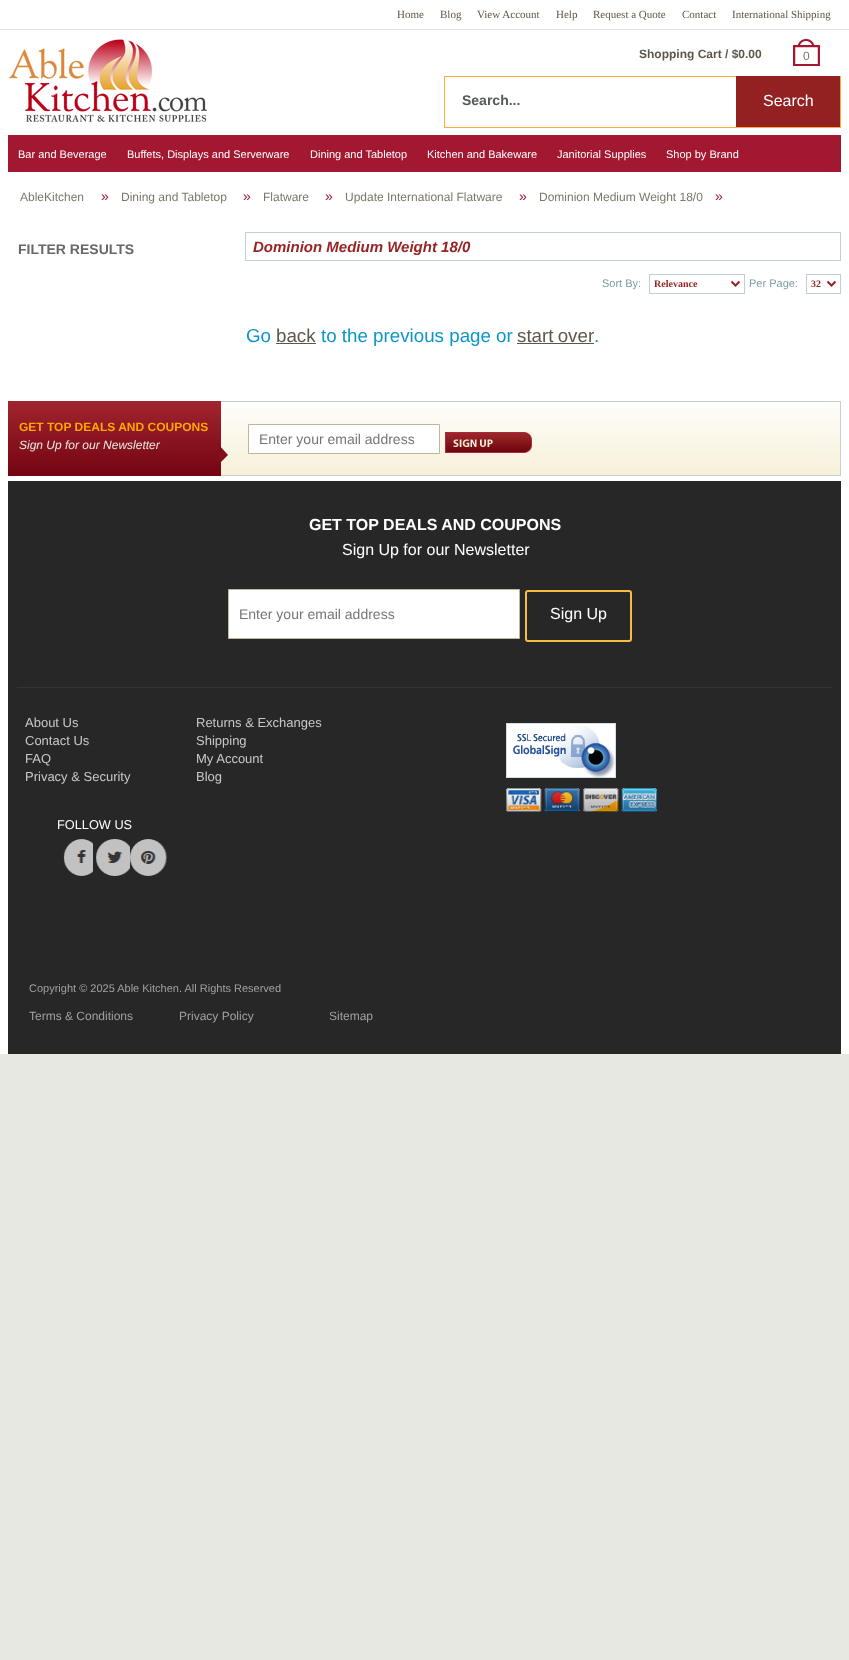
<!DOCTYPE html>
<meta charset="utf-8">
<style>body { margin: 0 } canvas { display: block }</style>
<canvas id="canvas" width="849" height="1660"></canvas>
<img id="img1" src="images/1.png" hidden>
<img id="img2" src="images/2.png" hidden>
<img id="img3" src="images/3.png" hidden>
<img id="img4" src="images/4.png" hidden>
<img id="img5" src="images/5.png" hidden>
<img id="img6" src="images/6.png" hidden>
<img id="img7" src="images/7.png" hidden>
<img id="img8" src="images/8.png" hidden>
<script>
window.onload = function () {
    const canvas = document.getElementById('canvas');
    const context = canvas.getContext('2d');
    context.miterLimit = 4;
    context.fontKerning = 'normal';
    let gradient;

    context.fillStyle = 'rgb(232, 232, 227)';
    context.fillRect(0, 0, 849, 1660);
    context.fillStyle = 'rgb(255, 255, 255)';
    context.fillRect(0, 0, 849, 29);
    context.fillStyle = 'rgb(225, 225, 225)';
    context.fillRect(0, 29, 849, 1);
    context.fillStyle = 'rgb(255, 255, 255)';
    context.fillRect(0, 30, 849, 1024);
    context.drawImage(document.getElementById('img1'), 9, 39, 198, 83);
    context.drawImage(document.getElementById('img2'), 793, 39, 27, 27);
    context.strokeStyle = 'rgb(253, 172, 57)';
    context.strokeRect(444.5, 76.5, 396, 51);
    context.fillStyle = 'rgb(147, 33, 33)';
    context.fillRect(736, 76, 104, 51);
    context.fillStyle = 'rgb(162, 24, 49)';
    context.fillRect(8, 135, 833, 37);
    gradient = context.createLinearGradient(115, 401, 115, 479);
    gradient.addColorStop(0, 'rgb(161, 37, 47)');
    gradient.addColorStop(1, 'rgb(113, 3, 16)');
    context.fillStyle = gradient;
    context.fillRect(8, 401, 213, 75);
    gradient = context.createLinearGradient(424, 402, 424, 475);
    gradient.addColorStop(0, 'rgb(254, 253, 250)');
    gradient.addColorStop(1, 'rgb(247, 241, 217)');
    context.fillStyle = gradient;
    context.fillRect(221, 402, 619, 73);
    context.fillStyle = 'rgb(126, 17, 23)';
    context.beginPath();
    context.moveTo(219, 464);
    context.lineTo(219, 445);
    context.lineTo(228, 455);
    context.closePath();
    context.fill();
    context.fillStyle = 'rgb(198, 207, 212)';
    context.fillRect(221, 401, 620, 1);
    context.fillRect(840, 401, 1, 75);
    context.fillRect(221, 475, 620, 1);
    context.fillStyle = 'rgb(255, 255, 255)';
    context.beginPath();
    context.rect(248.5, 424.5, 191, 29);
    context.fill();
    context.strokeStyle = 'rgb(193, 180, 157)';
    context.stroke();
    context.drawImage(document.getElementById('img3'), 445, 432, 87, 21);
    context.strokeStyle = 'rgb(196, 207, 213)';
    context.strokeRect(245.5, 232.5, 595, 28);
    context.strokeRect(649.5, 274.5, 95, 19);
    context.beginPath();
    context.moveTo(731.5, 281.5);
    context.lineTo(735.5, 285.5);
    context.lineTo(739.5, 281.5);
    context.strokeStyle = 'rgb(151, 36, 37)';
    context.lineWidth = 2;
    context.stroke();
    context.strokeStyle = 'rgb(196, 207, 213)';
    context.lineWidth = 1;
    context.strokeRect(806.5, 274.5, 34, 19);
    context.beginPath();
    context.moveTo(827.5, 281.5);
    context.lineTo(831.5, 285.5);
    context.lineTo(835.5, 281.5);
    context.strokeStyle = 'rgb(151, 36, 37)';
    context.lineWidth = 2;
    context.stroke();
    context.fillStyle = 'rgb(93, 86, 74)';
    context.fillRect(276, 343, 40, 1);
    context.fillRect(517, 343, 77, 1);
    context.fillStyle = 'rgb(39, 39, 39)';
    context.fillRect(8, 481, 833, 573);
    context.fillStyle = 'rgb(255, 255, 255)';
    context.beginPath();
    context.rect(228.5, 589.5, 291, 49);
    context.fill();
    context.strokeStyle = 'rgb(193, 180, 157)';
    context.lineWidth = 1;
    context.stroke();
    context.beginPath();
    context.roundRect(526, 591, 105, 50, 2);
    context.strokeStyle = 'rgb(248, 189, 63)';
    context.lineWidth = 2;
    context.stroke();
    context.fillStyle = 'rgb(52, 52, 52)';
    context.fillRect(17, 687, 815, 1);
    context.drawImage(document.getElementById('img4'), 506, 723, 110, 55);
    context.drawImage(document.getElementById('img5'), 506, 788, 151, 24);
    context.drawImage(document.getElementById('img6'), 63, 839, 30, 37);
    context.drawImage(document.getElementById('img7'), 96, 839, 34, 37);
    context.drawImage(document.getElementById('img8'), 130, 839, 37, 37);
    context.font = '11px Liberation Serif';
    context.fillStyle = 'rgb(93, 86, 74)';
    context.fillText('Home', 397, 18);
    context.fillText('Blog', 440, 18);
    context.fillText('View Account', 477, 18);
    context.fillText('Help', 556, 18);
    context.fillText('Request a Quote', 593, 18);
    context.fillText('Contact', 682, 18);
    context.fillText('International Shipping', 732, 18);
    context.font = 'bold 12px Liberation Sans';
    context.fillText('Shopping Cart / $0.00', 639, 58);
    context.font = '12px Liberation Sans';
    context.fillStyle = 'rgb(125, 118, 106)';
    context.fillText('0', 803, 60);
    context.font = 'bold 14px Liberation Sans';
    context.fillStyle = 'rgb(84, 89, 92)';
    context.fillText('Search...', 462, 105);
    context.font = '16px Liberation Sans';
    context.fillStyle = 'rgb(255, 255, 255)';
    context.fillText('Search', 763, 106);
    context.font = '11px Liberation Sans';
    context.fillText('Bar and Beverage', 18, 158);
    context.fillText('Buffets, Displays and Serverware', 127, 158);
    context.fillText('Dining and Tabletop', 310, 158);
    context.fillText('Kitchen and Bakeware', 427, 158);
    context.fillText('Janitorial Supplies', 557, 158);
    context.fillText('Shop by Brand', 666, 158);
    context.font = '12px Liberation Sans';
    context.fillStyle = 'rgb(125, 118, 106)';
    context.fillText('AbleKitchen', 20, 201);
    context.font = '14px Liberation Sans';
    context.fillStyle = 'rgb(162, 24, 49)';
    context.fillText('»', 101, 201);
    context.font = '12px Liberation Sans';
    context.fillStyle = 'rgb(125, 118, 106)';
    context.fillText('Dining and Tabletop', 121, 201);
    context.font = '14px Liberation Sans';
    context.fillStyle = 'rgb(162, 24, 49)';
    context.fillText('»', 243, 201);
    context.font = '12px Liberation Sans';
    context.fillStyle = 'rgb(125, 118, 106)';
    context.fillText('Flatware', 263, 201);
    context.font = '14px Liberation Sans';
    context.fillStyle = 'rgb(162, 24, 49)';
    context.fillText('»', 325, 201);
    context.font = '12px Liberation Sans';
    context.fillStyle = 'rgb(125, 118, 106)';
    context.fillText('Update International Flatware', 345, 201);
    context.font = '14px Liberation Sans';
    context.fillStyle = 'rgb(162, 24, 49)';
    context.fillText('»', 519, 201);
    context.font = '12px Liberation Sans';
    context.fillStyle = 'rgb(125, 118, 106)';
    context.fillText('Dominion Medium Weight 18/0', 539, 201);
    context.font = '14px Liberation Sans';
    context.fillStyle = 'rgb(162, 24, 49)';
    context.fillText('»', 715, 201);
    context.font = 'bold 14px Liberation Sans';
    context.fillStyle = 'rgb(105, 104, 104)';
    context.fillText('FILTER RESULTS', 18, 254);
    context.font = 'bold 12px Liberation Sans';
    context.fillStyle = 'rgb(255, 166, 0)';
    context.fillText('GET TOP DEALS AND COUPONS', 19, 431);
    context.font = 'italic 12px Liberation Sans';
    context.fillStyle = 'rgb(232, 232, 227)';
    context.fillText('Sign Up for our Newsletter', 19, 449);
    context.font = '14px Liberation Sans';
    context.fillStyle = 'rgb(117, 117, 117)';
    context.fillText('Enter your email address', 259, 444);
    context.font = 'italic bold 15px Liberation Sans';
    context.fillStyle = 'rgb(151, 36, 37)';
    context.fillText('Dominion Medium Weight 18/0', 253, 252);
    context.font = '11px Liberation Sans';
    context.fillStyle = 'rgb(124, 155, 169)';
    context.fillText('Sort By:', 602, 287);
    context.font = 'bold 10px Liberation Serif';
    context.fillStyle = 'rgb(151, 36, 37)';
    context.fillText('Relevance', 654, 287);
    context.font = '11px Liberation Sans';
    context.fillStyle = 'rgb(124, 155, 169)';
    context.fillText('Per Page:', 749, 287);
    context.font = 'bold 10px Liberation Serif';
    context.fillStyle = 'rgb(151, 36, 37)';
    context.fillText('32', 811, 287);
    context.font = '18.75px Liberation Sans';
    context.fillStyle = 'rgb(12, 149, 201)';
    context.fillText('Go', 246, 342);
    context.fillStyle = 'rgb(93, 86, 74)';
    context.fillText('back', 276, 342);
    context.fillStyle = 'rgb(12, 149, 201)';
    context.fillText('to the previous page or', 321, 342);
    context.wordSpacing = '-1px';
    context.fillStyle = 'rgb(93, 86, 74)';
    context.fillText('start over', 517, 342);
    context.wordSpacing = '0px';
    context.fillStyle = 'rgb(12, 149, 201)';
    context.fillText('.', 594, 342);
    context.font = 'bold 16px Liberation Sans';
    context.fillStyle = 'rgb(255, 255, 255)';
    context.fillText('GET TOP DEALS AND COUPONS', 309, 530);
    context.font = '16px Liberation Sans';
    context.fillText('Sign Up for our Newsletter', 342, 555);
    context.font = '14px Liberation Sans';
    context.fillStyle = 'rgb(117, 117, 117)';
    context.fillText('Enter your email address', 239, 619);
    context.font = '16px Liberation Sans';
    context.fillStyle = 'rgb(255, 255, 255)';
    context.fillText('Sign Up', 550, 619);
    context.font = '13px Liberation Sans';
    context.fillStyle = 'rgb(200, 200, 200)';
    context.fillText('About Us', 25, 727);
    context.fillText('Contact Us', 25, 745);
    context.fillText('FAQ', 25, 763);
    context.fillText('Privacy & Security', 25, 781);
    context.fillText('Returns & Exchanges', 196, 727);
    context.fillText('Shipping', 196, 745);
    context.fillText('My Account', 196, 763);
    context.fillText('Blog', 196, 781);
    context.font = '12.75px Liberation Sans';
    context.fillStyle = 'rgb(255, 255, 255)';
    context.fillText('FOLLOW US', 57, 829);
    context.font = '11px Liberation Sans';
    context.fillStyle = 'rgb(161, 161, 161)';
    context.fillText('Copyright © 2025 Able Kitchen. All Rights Reserved', 29, 992);
    context.font = '12px Liberation Sans';
    context.fillText('Terms & Conditions', 29, 1020);
    context.fillText('Privacy Policy', 179, 1020);
    context.fillText('Sitemap', 329, 1020);
};
</script>
